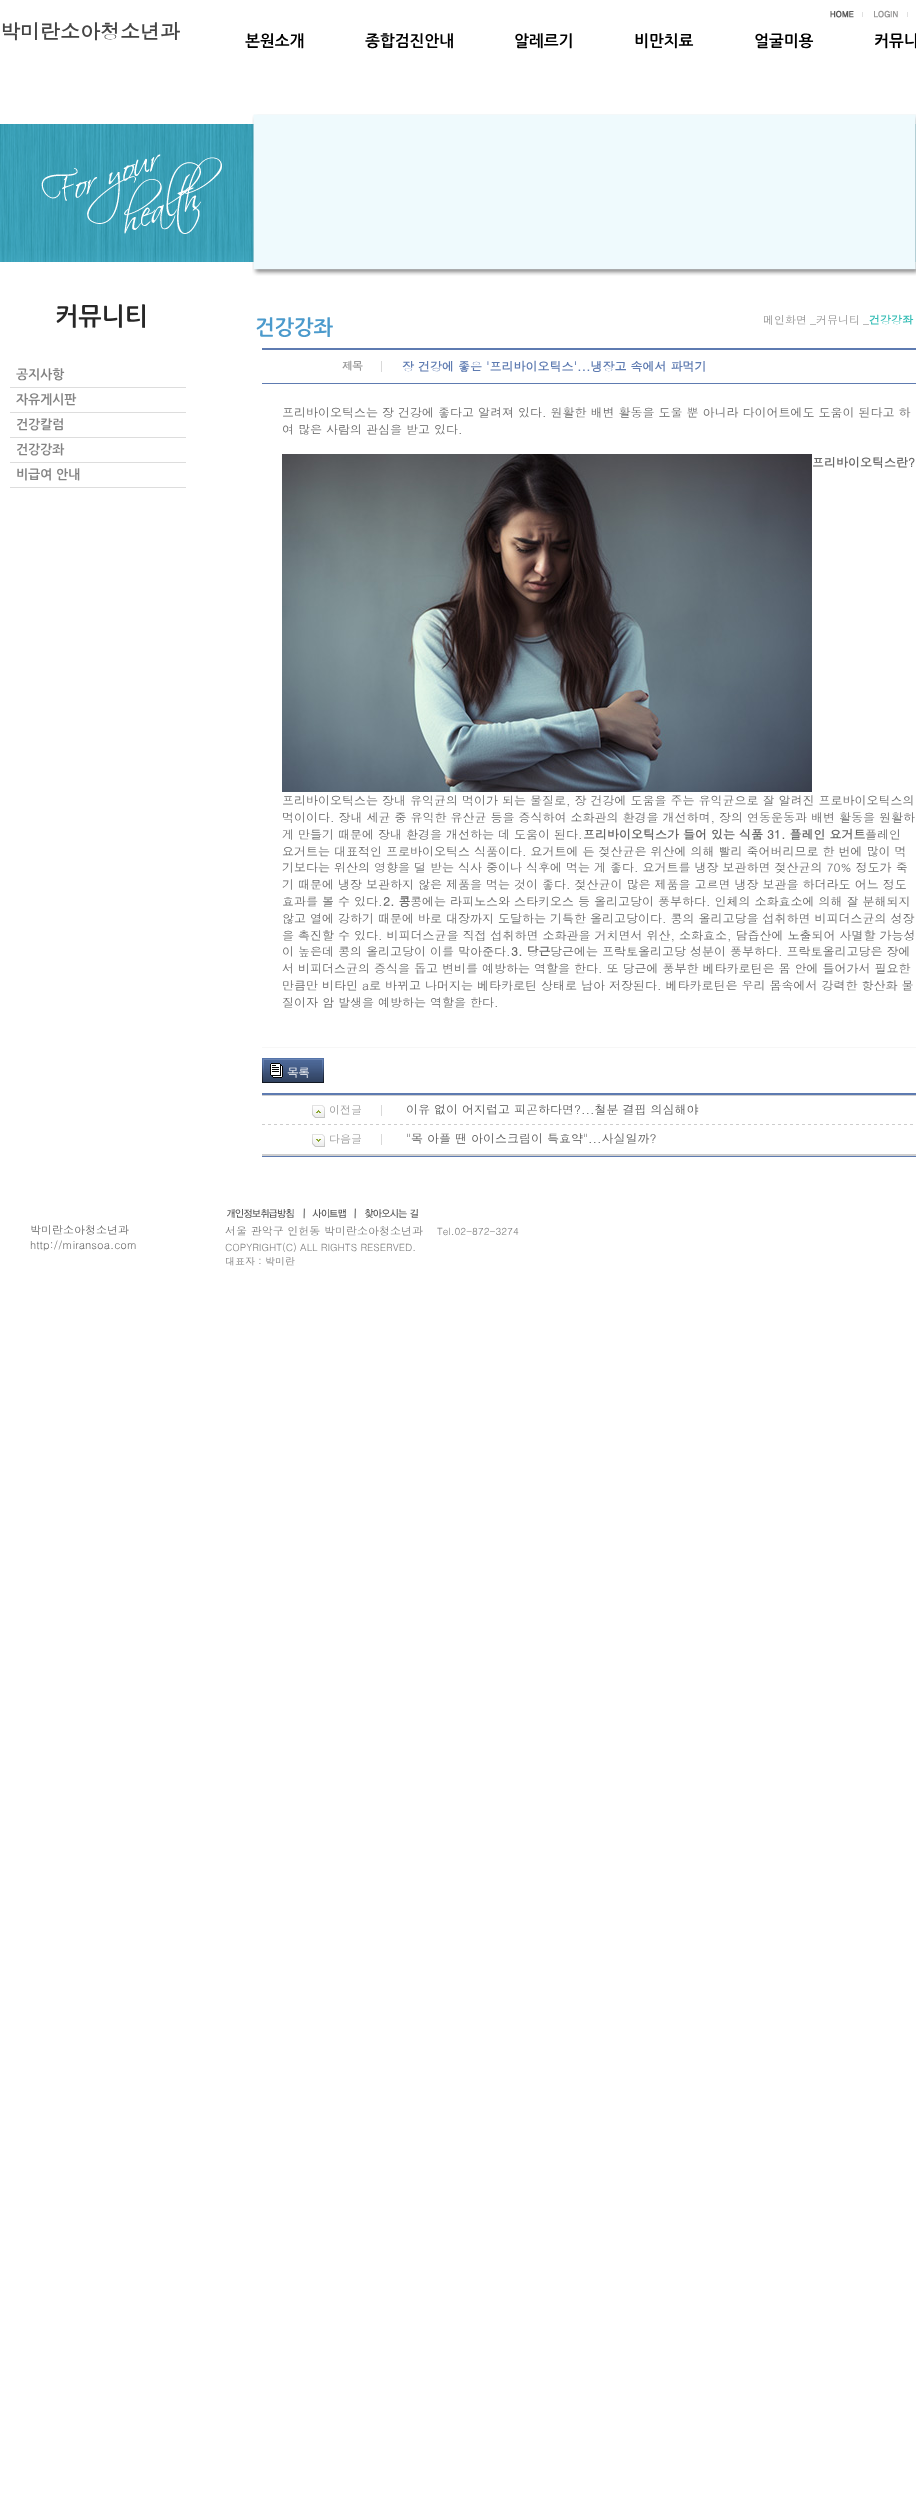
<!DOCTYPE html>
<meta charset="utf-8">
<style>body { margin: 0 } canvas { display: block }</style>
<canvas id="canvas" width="916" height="2517"></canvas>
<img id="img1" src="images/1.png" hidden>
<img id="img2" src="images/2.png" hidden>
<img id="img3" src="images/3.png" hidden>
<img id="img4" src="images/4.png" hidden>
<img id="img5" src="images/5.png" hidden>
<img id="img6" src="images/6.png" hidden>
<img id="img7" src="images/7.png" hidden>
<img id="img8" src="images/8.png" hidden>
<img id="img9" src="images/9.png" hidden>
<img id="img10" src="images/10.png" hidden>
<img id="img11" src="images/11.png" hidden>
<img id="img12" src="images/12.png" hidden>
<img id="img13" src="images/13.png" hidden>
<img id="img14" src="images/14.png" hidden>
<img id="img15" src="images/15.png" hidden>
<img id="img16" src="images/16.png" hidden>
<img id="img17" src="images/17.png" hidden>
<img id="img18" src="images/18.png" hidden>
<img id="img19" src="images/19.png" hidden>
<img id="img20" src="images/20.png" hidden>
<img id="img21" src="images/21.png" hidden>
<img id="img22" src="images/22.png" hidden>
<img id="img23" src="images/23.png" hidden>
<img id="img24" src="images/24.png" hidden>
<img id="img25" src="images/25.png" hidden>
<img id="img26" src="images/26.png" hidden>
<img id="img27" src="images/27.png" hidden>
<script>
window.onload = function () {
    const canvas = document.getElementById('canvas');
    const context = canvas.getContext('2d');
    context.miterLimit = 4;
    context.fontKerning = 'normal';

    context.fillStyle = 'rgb(255, 255, 255)';
    context.fillRect(0, 0, 916, 2517);
    context.drawImage(document.getElementById('img1'), 0, 124, 916, 138);
    context.drawImage(document.getElementById('img2'), 830, 10, 33, 8);
    context.drawImage(document.getElementById('img3'), 874, 10, 34, 8);
    context.drawImage(document.getElementById('img4'), 245, 33, 59, 16);
    context.drawImage(document.getElementById('img5'), 365, 33, 88, 16);
    context.drawImage(document.getElementById('img6'), 515, 33, 57, 16);
    context.drawImage(document.getElementById('img7'), 635, 33, 59, 16);
    context.drawImage(document.getElementById('img8'), 755, 33, 59, 16);
    context.drawImage(document.getElementById('img9'), 875, 33, 41, 16);
    context.drawImage(document.getElementById('img10'), 41, 154, 181, 80);
    context.drawImage(document.getElementById('img11'), 56, 304, 89, 24);
    context.fillStyle = 'rgb(221, 221, 221)';
    context.fillRect(10, 387, 176, 1);
    context.drawImage(document.getElementById('img12'), 16, 368, 49, 13);
    context.fillRect(10, 412, 176, 1);
    context.drawImage(document.getElementById('img13'), 16, 393, 61, 13);
    context.fillRect(10, 437, 176, 1);
    context.drawImage(document.getElementById('img14'), 17, 418, 46, 13);
    context.fillRect(10, 462, 176, 1);
    context.drawImage(document.getElementById('img15'), 17, 443, 48, 13);
    context.fillRect(10, 487, 176, 1);
    context.drawImage(document.getElementById('img16'), 17, 468, 34, 13);
    context.drawImage(document.getElementById('img17'), 57, 468, 23, 13);
    context.drawImage(document.getElementById('img18'), 252, 114, 664, 162);
    context.drawImage(document.getElementById('img19'), 256, 317, 77, 20);
    context.fillStyle = 'rgb(94, 123, 177)';
    context.fillRect(262, 348, 654, 2);
    context.fillRect(262, 383, 654, 1);
    context.fillStyle = 'rgb(217, 217, 217)';
    context.fillRect(381, 361, 1, 11);
    context.fillStyle = 'rgb(247, 247, 247)';
    context.fillRect(262, 1047, 654, 1);
    context.drawImage(document.getElementById('img20'), 282, 454, 530, 338);
    context.drawImage(document.getElementById('img21'), 262, 1058, 62, 25);
    context.fillStyle = 'rgb(94, 123, 177)';
    context.fillRect(262, 1093, 654, 2);
    context.fillRect(262, 1156, 654, 1);
    context.drawImage(document.getElementById('img22'), 262, 1124, 651, 1);
    context.fillStyle = 'rgb(207, 207, 207)';
    context.fillRect(262, 1095, 654, 1);
    context.fillStyle = 'rgb(217, 217, 217)';
    context.fillRect(381, 1105, 1, 11);
    context.drawImage(document.getElementById('img23'), 312, 1105, 13, 13);
    context.fillStyle = 'rgb(207, 207, 207)';
    context.fillRect(262, 1154, 654, 2);
    context.fillStyle = 'rgb(217, 217, 217)';
    context.fillRect(381, 1134, 1, 11);
    context.drawImage(document.getElementById('img24'), 312, 1134, 13, 13);
    context.drawImage(document.getElementById('img25'), 227, 1208, 78, 11);
    context.drawImage(document.getElementById('img26'), 312, 1208, 44, 11);
    context.drawImage(document.getElementById('img27'), 365, 1209, 53, 9);
    context.font = 'bold 20px Dotum';
    context.fillStyle = 'rgb(68, 68, 68)';
    context.fillText('박미란소아청소년과', 0, 39);
    context.font = '11px Dotum';
    context.fillStyle = 'rgb(144, 144, 144)';
    context.fillText('메인화면', 763, 324);
    context.font = '12px Dotum';
    context.fillText('_', 810, 324);
    context.font = '11px Dotum';
    context.fillText('커뮤니티', 816, 324);
    context.font = '12px Dotum';
    context.fillText('_', 863, 324);
    context.font = 'bold 11px Dotum';
    context.fillStyle = 'rgb(52, 189, 181)';
    context.fillText('건강강좌', 869, 324);
    context.letterSpacing = '-1px';
    context.fillStyle = 'rgb(152, 152, 152)';
    context.fillText('제목', 342, 370);
    context.letterSpacing = '0px';
    context.font = 'bold 12px Dotum';
    context.fillStyle = 'rgb(94, 123, 177)';
    context.fillText('장 건강에 좋은 \'프리바이오틱스\'...냉장고 속에서 파먹기', 402, 371);
    context.font = '12px Dotum';
    context.fillStyle = 'rgb(102, 102, 102)';
    context.fillText('프리바이오틱스는 장 건강에 좋다고 알려져 있다. 원활한 배변 활동을 도울 뿐 아니라 다이어트에도 도움이 된다고 하', 282, 417);
    context.fillText('여 많은 사람의 관심을 받고 있다.', 282, 434);
    context.font = 'bold 12px Dotum';
    context.fillText('프리바이오틱스란?', 812, 467);
    context.font = '12px Dotum';
    context.fillText('프리바이오틱스는 장내 유익균의 먹이가 되는 물질로, 장 건강에 도움을 주는 유익균으로 잘 알려진 프로바이오틱스의', 282, 805);
    context.fillText('먹이이다. 장내 세균 중 유익한 유산균 등을 증식하여 소화관의 환경을 개선하며, 장의 연동운동과 배변 활동을 원활하', 282, 822);
    context.fillText('게 만들기 때문에 장내 환경을 개선하는 데 도움이 된다.', 282, 839);
    context.font = 'bold 12px Dotum';
    context.fillText('프리바이오틱스가 들어 있는 식품 31. 플레인 요거트', 583, 839);
    context.font = '12px Dotum';
    context.fillText('플레인', 865, 839);
    context.fillText('요거트는 대표적인 프로바이오틱스 식품이다. 요거트에 든 젖산균은 위산에 의해 빨리 죽어버리므로 한 번에 많이 먹', 282, 856);
    context.fillText('기보다는 위산의 영향을 덜 받는 식사 중이나 식후에 먹는 게 좋다. 요거트를 냉장 보관하면 젖산균의 70% 정도가 죽', 282, 872);
    context.fillText('기 때문에 냉장 보관하지 않은 제품을 먹는 것이 좋다. 젖산균이 많은 제품을 고르면 냉장 보관을 하더라도 어느 정도', 282, 889);
    context.fillText('효과를 볼 수 있다.', 282, 906);
    context.font = 'bold 12px Dotum';
    context.fillText('2. 콩', 383, 906);
    context.font = '12px Dotum';
    context.fillText('콩에는 라피노스와 스타키오스 등 올리고당이 풍부하다. 인체의 소화효소에 의해 잘 분해되지', 410, 906);
    context.fillText('않고 열에 강하기 때문에 바로 대장까지 도달하는 기특한 올리고당이다. 콩의 올리고당을 섭취하면 비피더스균의 성장', 282, 923);
    context.fillText('을 촉진할 수 있다. 비피더스균을 직접 섭취하면 소화관을 거치면서 위산, 소화효소, 담즙산에 노출되어 사멸할 가능성', 282, 940);
    context.fillText('이 높은데 콩의 올리고당이 이를 막아준다.', 282, 956);
    context.font = 'bold 12px Dotum';
    context.fillText('3. 당근', 511, 956);
    context.font = '12px Dotum';
    context.fillText('당근에는 프락토올리고당 성분이 풍부하다. 프락토올리고당은 장에', 550, 956);
    context.fillText('서 비피더스균의 증식을 돕고 변비를 예방하는 역할을 한다. 또 당근에 풍부한 베타카로틴은 몸 안에 들어가서 필요한', 282, 973);
    context.fillText('만큼만 비타민 a로 바뀌고 나머지는 베타카로틴 상태로 남아 저장된다. 베타카로틴은 우리 몸속에서 강력한 항산화 물', 282, 990);
    context.fillText('질이자 암 발생을 예방하는 역할을 한다.', 282, 1007);
    context.letterSpacing = '-1px';
    context.fillStyle = 'rgb(255, 255, 255)';
    context.fillText('목록', 287, 1077);
    context.letterSpacing = '0px';
    context.font = '11px Dotum';
    context.fillStyle = 'rgb(152, 152, 152)';
    context.fillText('이전글', 329, 1114);
    context.font = '12px Dotum';
    context.fillStyle = 'rgb(85, 85, 85)';
    context.fillText('이유 없이 어지럽고 피곤하다면?...철분 결핍 의심해야', 406, 1114);
    context.font = '11px Dotum';
    context.fillStyle = 'rgb(152, 152, 152)';
    context.fillText('다음글', 329, 1143);
    context.font = '12px Dotum';
    context.fillStyle = 'rgb(85, 85, 85)';
    context.fillText('"목 아플 땐 아이스크림이 특효약"...사실일까?', 406, 1143);
    context.font = '11px Dotum';
    context.fillStyle = 'rgb(102, 102, 102)';
    context.fillText('박미란소아청소년과', 30, 1234);
    context.fillText('http://miransoa.com', 30, 1249);
    context.fillStyle = 'rgb(124, 124, 124)';
    context.fillText('서울 관악구 인헌동 박미란소아청소년과', 225, 1235);
    context.font = '10px Dotum';
    context.fillText('Tel.02-872-3274', 437, 1235);
    context.fillText('COPYRIGHT(C) ALL RIGHTS RESERVED.', 225, 1251);
    context.fillText('대표자 : 박미란', 225, 1265);
};
</script>
